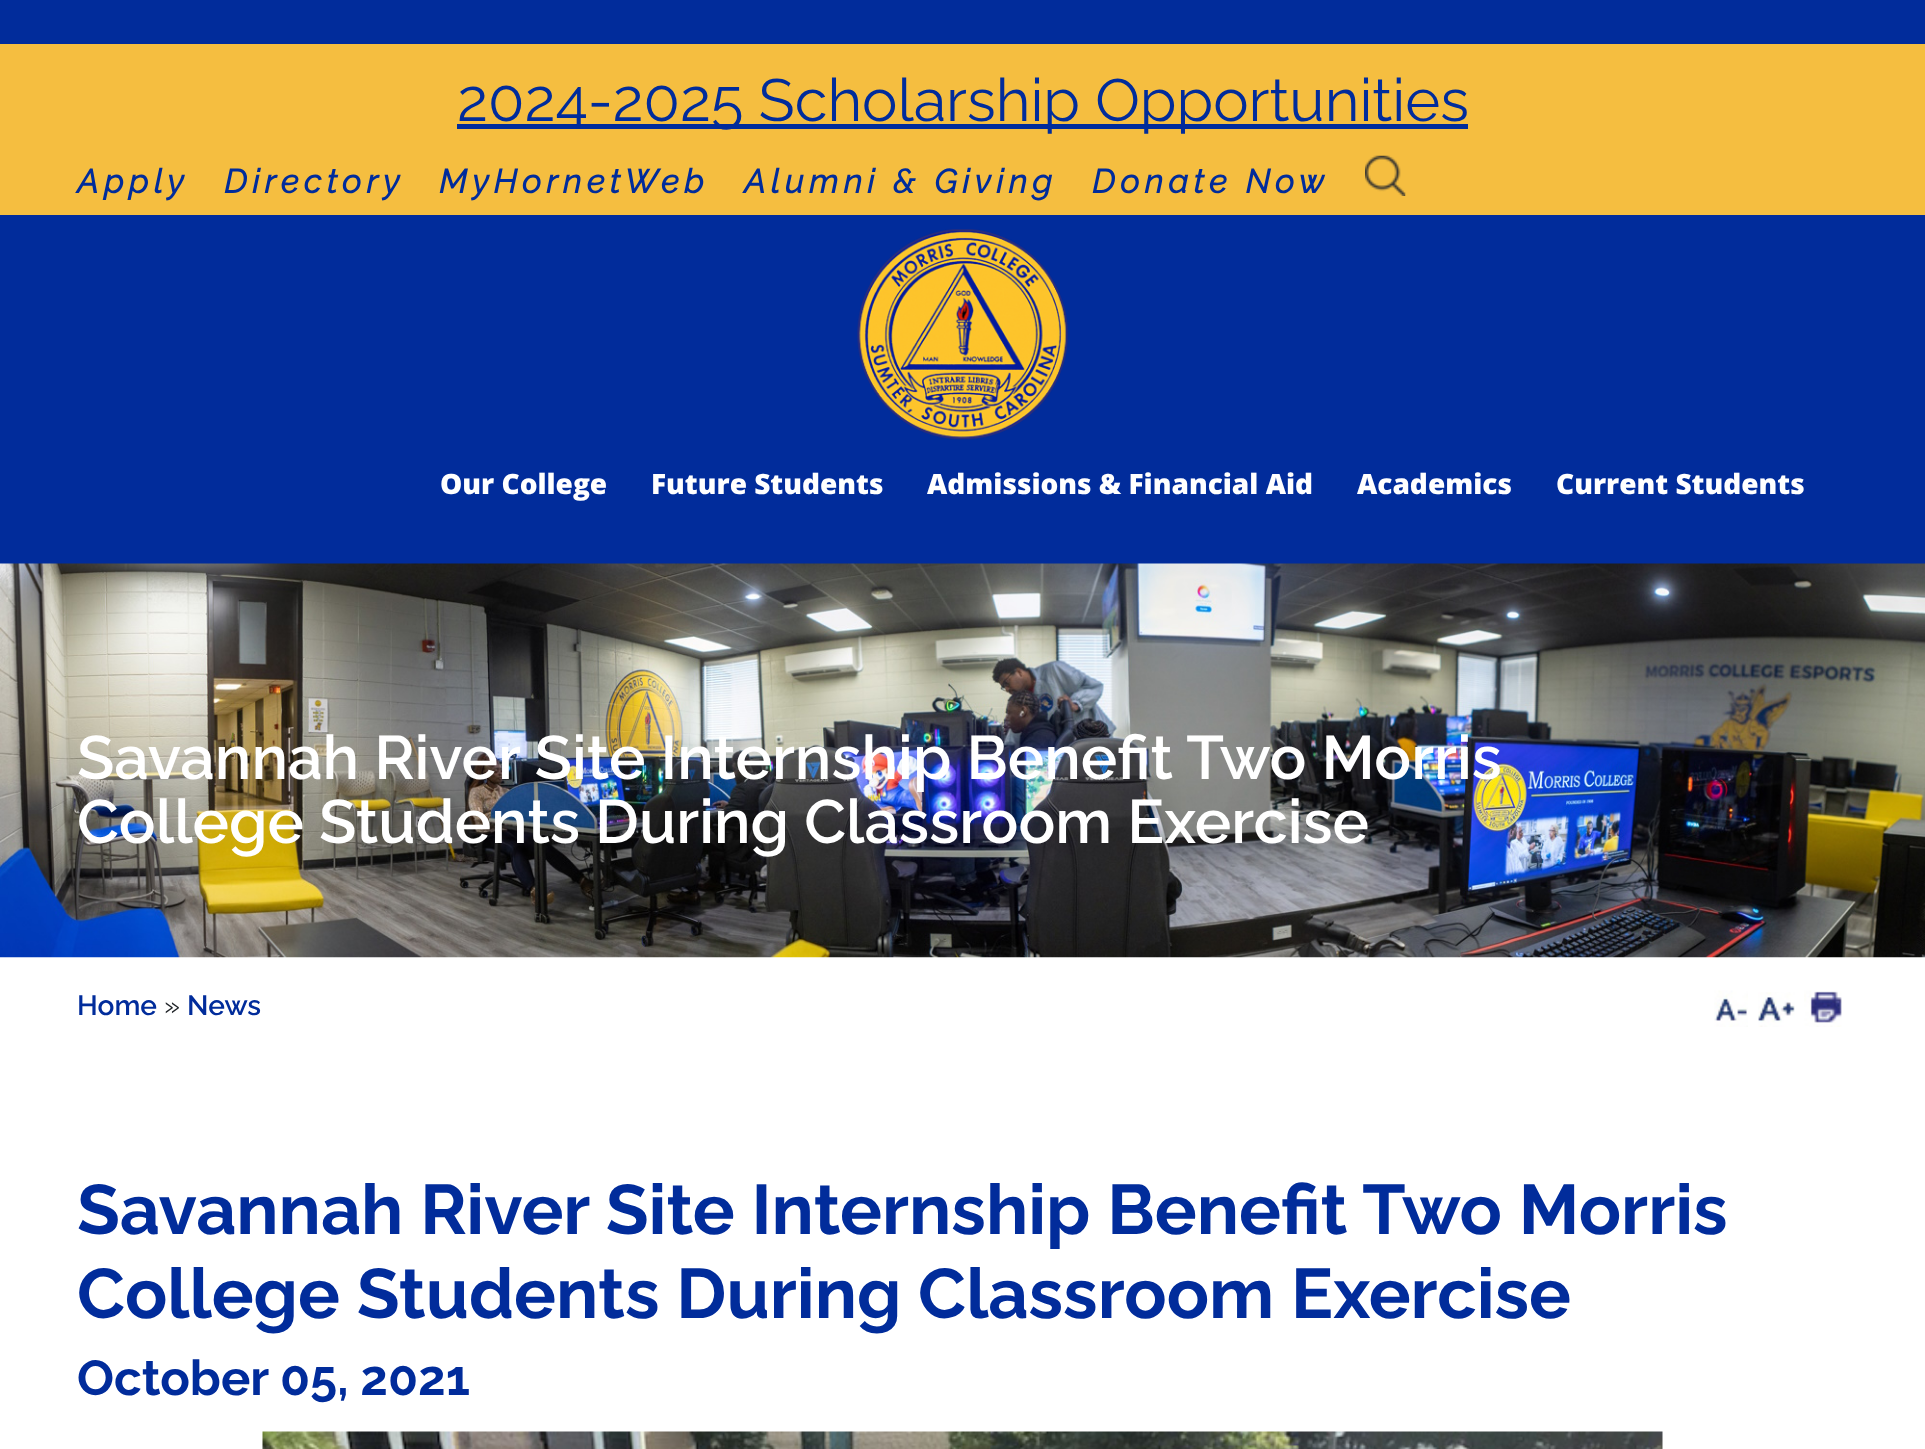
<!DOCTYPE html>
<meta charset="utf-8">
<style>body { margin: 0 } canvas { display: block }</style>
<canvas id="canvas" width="1925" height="1449"></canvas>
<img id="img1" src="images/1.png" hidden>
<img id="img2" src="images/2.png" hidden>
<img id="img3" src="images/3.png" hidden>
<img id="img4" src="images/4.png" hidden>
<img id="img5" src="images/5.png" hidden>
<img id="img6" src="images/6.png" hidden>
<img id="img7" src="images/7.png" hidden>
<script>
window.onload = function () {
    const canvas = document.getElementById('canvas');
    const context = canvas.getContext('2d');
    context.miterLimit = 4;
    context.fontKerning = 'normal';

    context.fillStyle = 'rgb(255, 255, 255)';
    context.fillRect(0, 0, 1925, 1449);
    context.fillStyle = 'rgb(1, 44, 155)';
    context.fillRect(0, 0, 1925, 564);
    context.fillStyle = 'rgb(245, 190, 64)';
    context.fillRect(0, 44, 1925, 171);
    context.fillStyle = 'rgb(1, 44, 155)';
    context.fillRect(457, 124, 1011, 5);
    context.drawImage(document.getElementById('img1'), 1365, 155, 41, 41);
    context.drawImage(document.getElementById('img2'), 857, 229, 211, 211);
    context.drawImage(document.getElementById('img3'), 0, 563, 1925, 395);
    context.drawImage(document.getElementById('img4'), 1714, 990, 34, 37);
    context.drawImage(document.getElementById('img5'), 1758, 992, 37, 35);
    context.drawImage(document.getElementById('img6'), 1804, 990, 38, 37);
    context.drawImage(document.getElementById('img7'), 262, 1431, 1401, 18);
    context.font = '59.5px Raleway';
    context.fillText('2024-2025 Scholarship Opportunities', 457, 121);
    context.letterSpacing = '5.25px';
    context.font = 'italic bold 33.25px Raleway';
    context.fillText('Apply', 77, 193);
    context.fillText('Directory', 224, 193);
    context.fillText('MyHornetWeb', 439, 193);
    context.fillText('Alumni & Giving', 744, 193);
    context.fillText('Donate Now', 1092, 193);
    context.letterSpacing = '0px';
    context.font = '800 28px Open Sans';
    context.fillStyle = 'rgb(255, 255, 255)';
    context.fillText('Our College', 440, 494);
    context.fillText('Future Students', 651, 494);
    context.fillText('Admissions & Financial Aid', 927, 494);
    context.fillText('Academics', 1357, 494);
    context.fillText('Current Students', 1556, 494);
    context.font = '600 61.25px Raleway';
    context.fillText('Savannah River Site Internship Benefit Two Morris', 77, 779);
    context.fillText('College Students During Classroom Exercise', 77, 843);
    context.font = '600 28px Raleway';
    context.fillStyle = 'rgb(1, 44, 155)';
    context.fillText('Home', 77, 1015);
    context.font = '28px Raleway';
    context.fillStyle = 'rgb(33, 37, 41)';
    context.fillText('»', 164, 1015);
    context.font = '600 28px Raleway';
    context.fillStyle = 'rgb(1, 44, 155)';
    context.fillText('News', 187, 1015);
    context.font = 'bold 70px Raleway';
    context.fillText('Savannah River Site Internship Benefit Two Morris', 77, 1234);
    context.fillText('College Students During Classroom Exercise', 77, 1318);
    context.font = 'bold 49px Raleway';
    context.fillText('October 05, 2021', 77, 1395);
};
</script>
